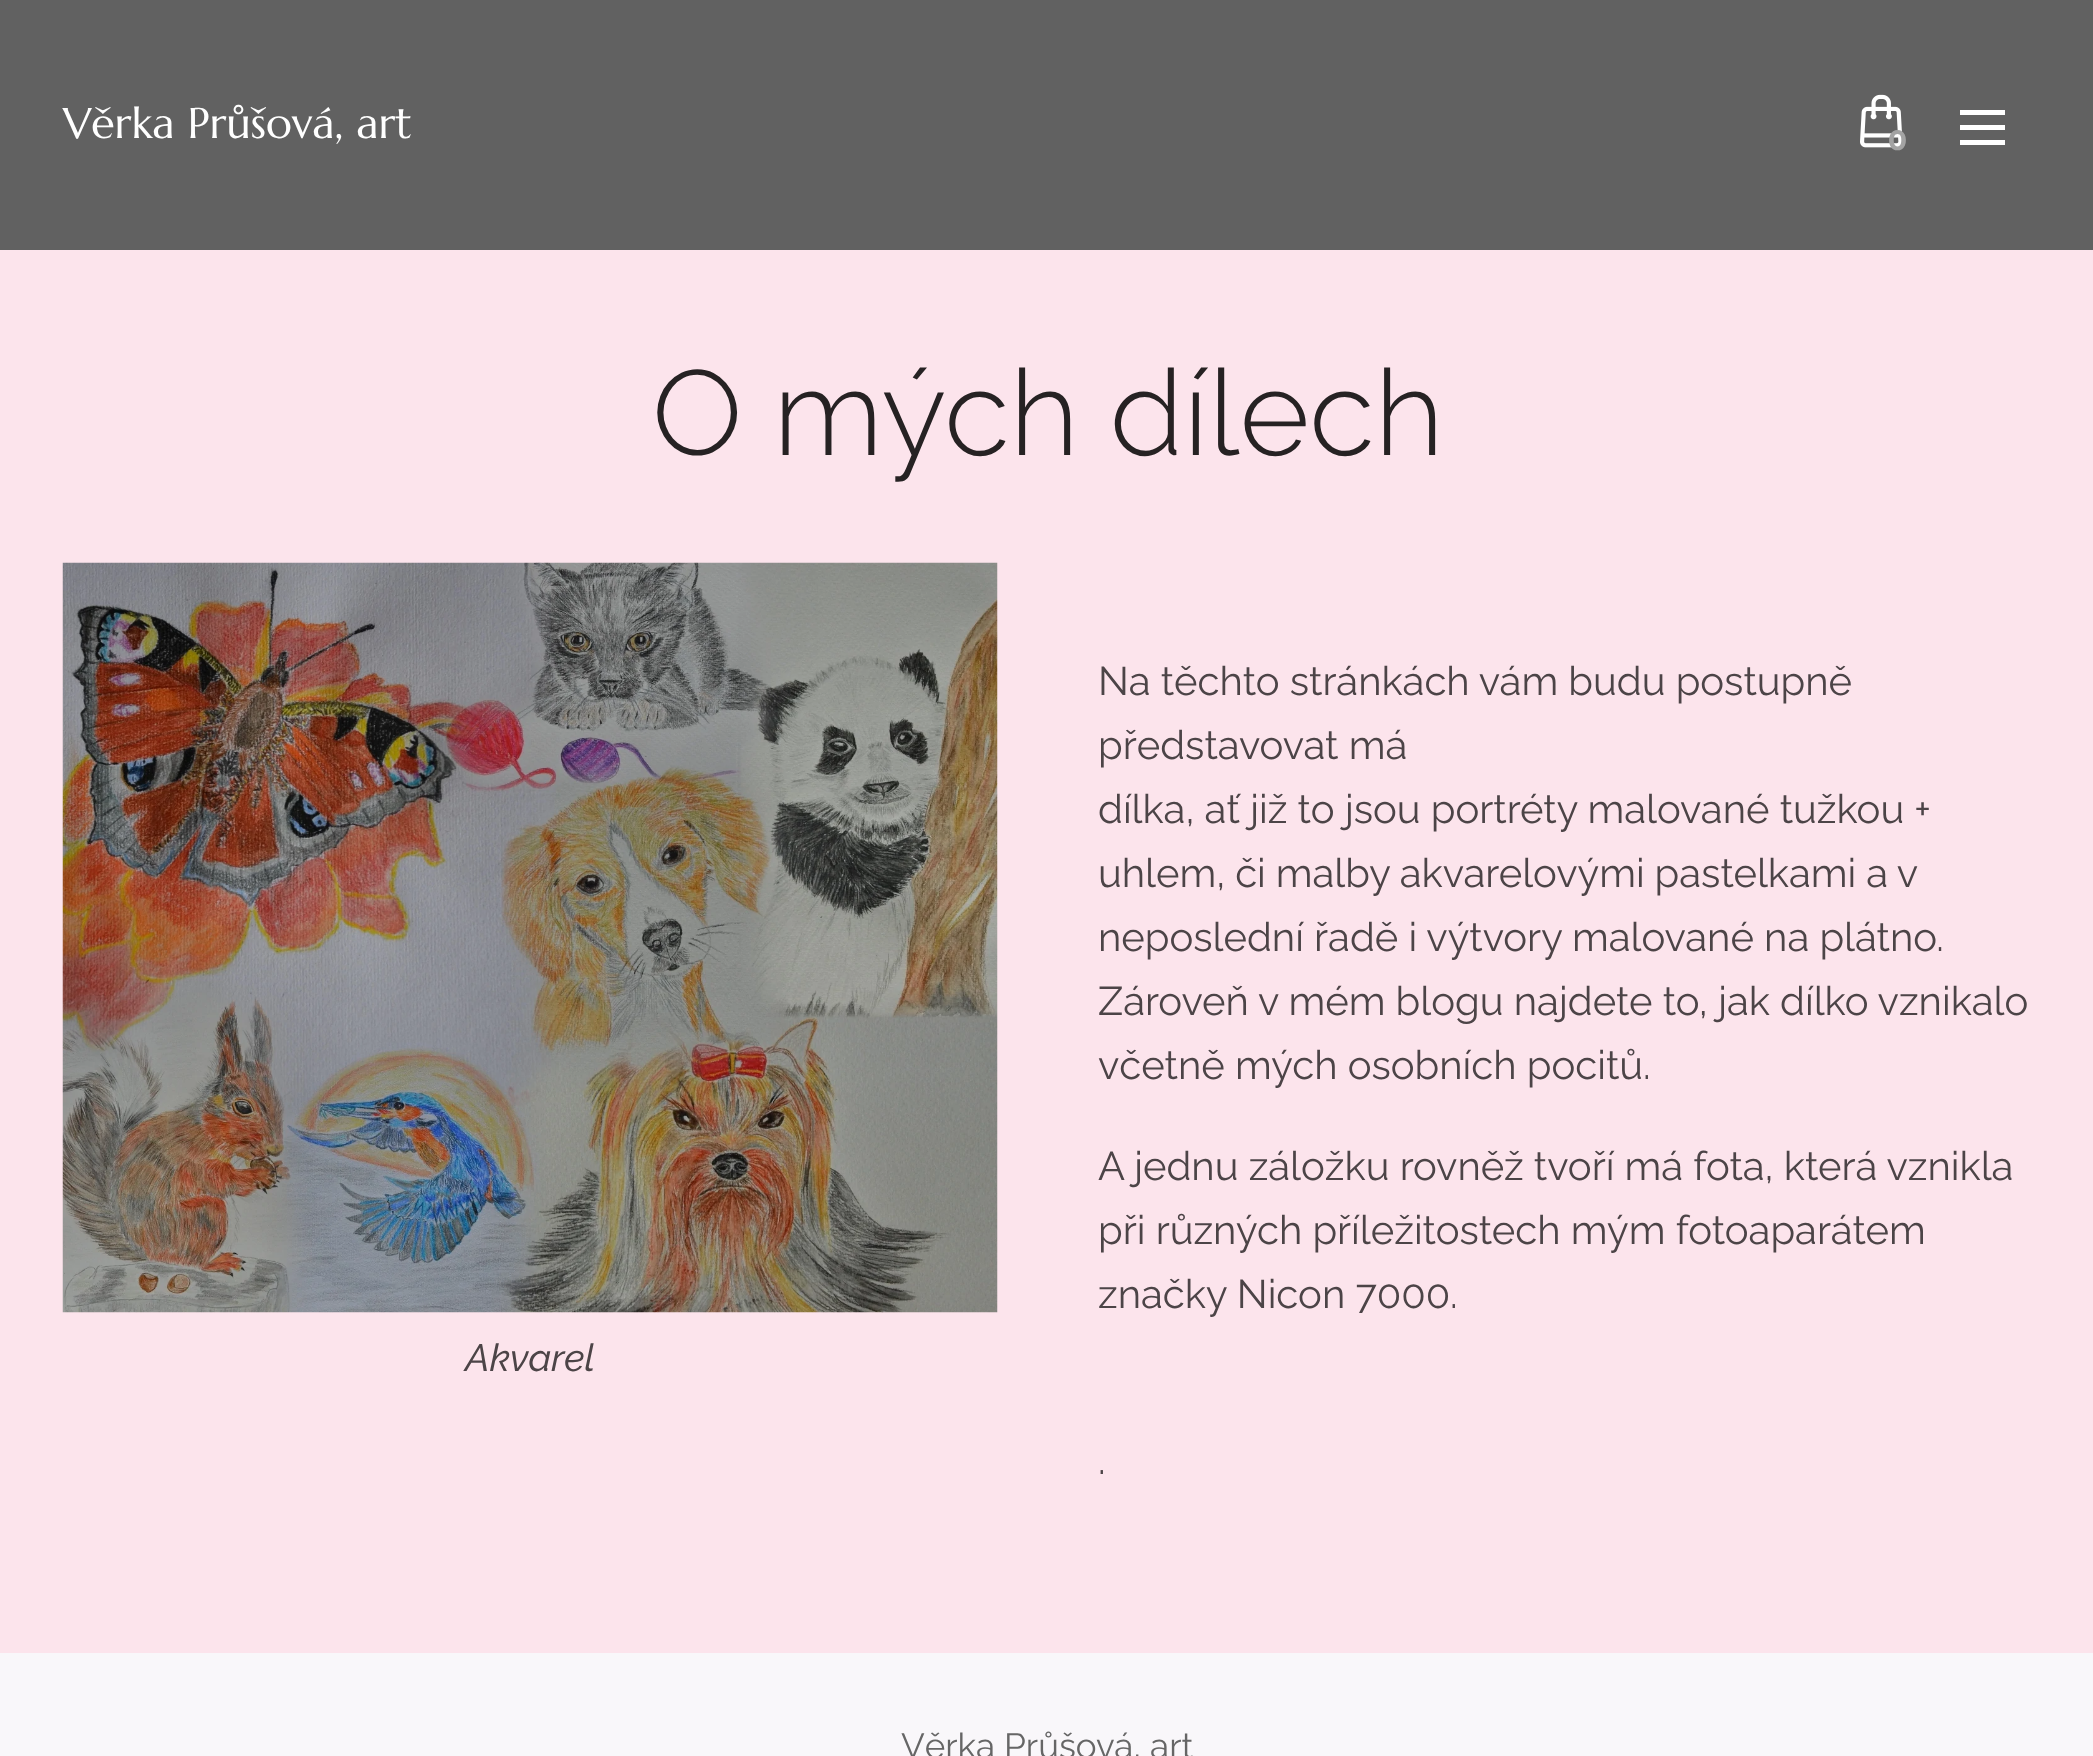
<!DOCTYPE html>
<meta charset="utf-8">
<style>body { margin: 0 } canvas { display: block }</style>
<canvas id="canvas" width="2093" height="1756"></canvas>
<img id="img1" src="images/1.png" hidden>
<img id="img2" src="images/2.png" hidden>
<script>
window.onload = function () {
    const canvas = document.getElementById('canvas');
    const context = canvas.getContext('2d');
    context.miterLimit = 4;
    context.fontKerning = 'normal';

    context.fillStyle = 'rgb(249, 247, 250)';
    context.fillRect(0, 0, 2093, 1756);
    context.fillStyle = 'rgb(97, 97, 97)';
    context.fillRect(0, 0, 2093, 250);
    context.drawImage(document.getElementById('img1'), 1860, 94, 43, 54);
    context.fillStyle = 'rgb(255, 255, 255)';
    context.fillRect(1960, 125, 45, 5);
    context.fillRect(1960, 110, 45, 5);
    context.fillRect(1960, 140, 45, 5);
    context.fillStyle = 'rgb(252, 228, 236)';
    context.fillRect(0, 250, 2093, 1403);
    context.drawImage(document.getElementById('img2'), 62, 562, 936, 751);
    context.font = '43px Marcellus';
    context.fillStyle = 'rgb(255, 255, 255)';
    context.fillText('Věrka Průšová, art', 63, 138);
    context.font = 'bold 28px Montserrat';
    context.fillStyle = 'rgb(163, 163, 163)';
    context.fillText('0', 1888, 150);
    context.font = '300 120px Raleway';
    context.fillStyle = 'rgb(38, 34, 35)';
    context.fillText('O mých dílech', 652, 455);
    context.font = 'italic 38px Raleway';
    context.fillStyle = 'rgb(76, 68, 71)';
    context.fillText('Akvarel', 465, 1371);
    context.font = '40px Raleway';
    context.fillText('Na těchto stránkách vám budu postupně', 1098, 695);
    context.fillText('představovat má', 1098, 759);
    context.fillText('dílka, ať již to jsou portréty malované tužkou +', 1098, 823);
    context.wordSpacing = '-0.25px';
    context.fillText('uhlem, či malby akvarelovými pastelkami a v', 1098, 887);
    context.wordSpacing = '0px';
    context.fillText('neposlední řadě i výtvory malované na plátno.', 1098, 951);
    context.fillText('Zároveň v mém blogu najdete to, jak dílko vznikalo', 1098, 1015);
    context.fillText('včetně mých osobních pocitů.', 1098, 1079);
    context.fillText('A jednu záložku rovněž tvoří má fota, která vznikla', 1098, 1180);
    context.fillText('při různých příležitostech mým fotoaparátem', 1098, 1244);
    context.fillText('značky Nicon 7000.', 1098, 1308);
    context.fillText('.', 1098, 1474);
    context.font = '35px Raleway';
    context.fillStyle = 'rgb(102, 102, 102)';
    context.fillText('Věrka Průšová, art', 901, 1758);
};
</script>
